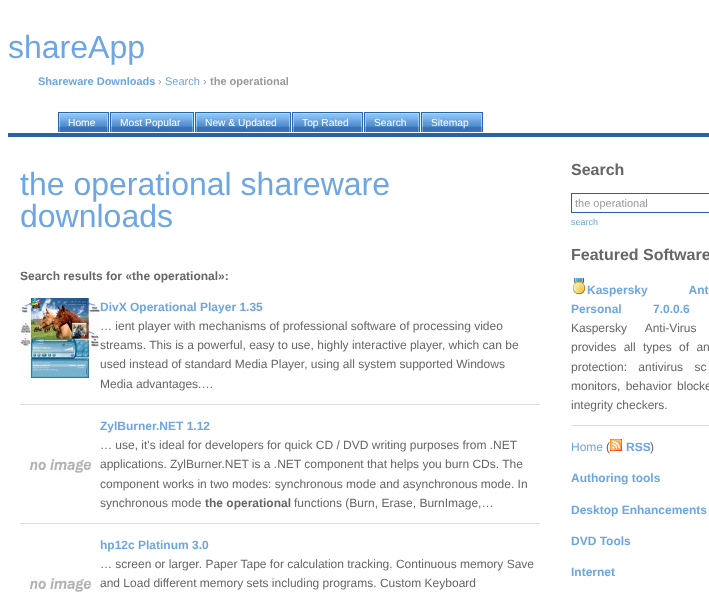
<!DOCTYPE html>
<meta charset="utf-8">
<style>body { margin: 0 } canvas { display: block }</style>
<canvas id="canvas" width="709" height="596"></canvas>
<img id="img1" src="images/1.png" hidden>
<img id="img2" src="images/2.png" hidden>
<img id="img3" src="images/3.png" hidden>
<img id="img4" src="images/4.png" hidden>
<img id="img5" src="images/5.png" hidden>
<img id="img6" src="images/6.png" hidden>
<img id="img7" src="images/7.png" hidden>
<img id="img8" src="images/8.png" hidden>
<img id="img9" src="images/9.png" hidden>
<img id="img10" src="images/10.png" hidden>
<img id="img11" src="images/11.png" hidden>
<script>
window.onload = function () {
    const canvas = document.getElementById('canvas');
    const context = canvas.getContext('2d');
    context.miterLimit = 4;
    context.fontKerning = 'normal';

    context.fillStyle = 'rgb(255, 255, 255)';
    context.fillRect(0, 0, 709, 596);
    context.fillStyle = 'rgb(39, 99, 165)';
    context.fillRect(8, 133, 701, 4);
    context.drawImage(document.getElementById('img1'), 58, 112, 4, 20);
    context.drawImage(document.getElementById('img2'), 62, 112, 48, 20);
    context.drawImage(document.getElementById('img1'), 110, 112, 4, 20);
    context.drawImage(document.getElementById('img3'), 114, 112, 81, 20);
    context.drawImage(document.getElementById('img1'), 195, 112, 4, 20);
    context.drawImage(document.getElementById('img4'), 199, 112, 92, 20);
    context.drawImage(document.getElementById('img1'), 292, 112, 4, 20);
    context.drawImage(document.getElementById('img5'), 296, 112, 67, 20);
    context.drawImage(document.getElementById('img1'), 364, 112, 4, 20);
    context.drawImage(document.getElementById('img6'), 368, 112, 53, 20);
    context.drawImage(document.getElementById('img1'), 421, 112, 4, 20);
    context.drawImage(document.getElementById('img7'), 425, 112, 58, 20);
    context.fillStyle = 'rgb(221, 221, 221)';
    context.fillRect(20, 404, 520, 1);
    context.drawImage(document.getElementById('img8'), 20, 298, 80, 80);
    context.fillRect(20, 523, 520, 1);
    context.drawImage(document.getElementById('img9'), 28, 457, 64, 16);
    context.drawImage(document.getElementById('img9'), 28, 576, 64, 16);
    context.strokeStyle = 'rgb(39, 99, 165)';
    context.strokeRect(571.5, 193.5, 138, 19);
    context.fillRect(571, 425, 138, 1);
    context.drawImage(document.getElementById('img10'), 573, 278, 12, 16);
    context.font = '32px Liberation Sans';
    context.fillStyle = 'rgb(109, 166, 226)';
    context.fillText('shareApp', 8, 58);
    context.font = 'bold 11px Liberation Sans';
    context.fillText('Shareware Downloads', 38, 85);
    context.font = '11px Liberation Sans';
    context.fillStyle = 'rgb(153, 153, 153)';
    context.fillText('›', 158, 85);
    context.fillStyle = 'rgb(109, 166, 226)';
    context.fillText('Search', 165, 85);
    context.fillStyle = 'rgb(153, 153, 153)';
    context.fillText('›', 203, 85);
    context.font = 'bold 11px Liberation Sans';
    context.fillText('the operational', 210, 85);
    context.font = '10.25px Liberation Sans';
    context.fillStyle = 'rgb(255, 255, 255)';
    context.fillText('Home', 68, 126);
    context.fillText('Most Popular', 120, 126);
    context.fillText('New & Updated', 205, 126);
    context.fillText('Top Rated', 302, 126);
    context.fillText('Search', 374, 126);
    context.fillText('Sitemap', 431, 126);
    context.font = '32px Liberation Sans';
    context.fillStyle = 'rgb(109, 166, 226)';
    context.fillText('the operational shareware', 20, 195);
    context.fillText('downloads', 20, 227);
    context.font = 'bold 12px Liberation Sans';
    context.fillStyle = 'rgb(102, 102, 102)';
    context.fillText('Search results for «the operational»:', 20, 280);
    context.fillStyle = 'rgb(109, 166, 226)';
    context.fillText('DivX Operational Player 1.35', 100, 311);
    context.font = '12px Liberation Sans';
    context.fillStyle = 'rgb(102, 102, 102)';
    context.fillText('… ient player with mechanisms of professional software of processing video', 100, 330);
    context.fillText('streams. This is a powerful, easy to use, highly interactive player, which can be', 100, 349);
    context.fillText('used instead of standard Media Player, using all system supported Windows', 100, 368);
    context.fillText('Media advantages.…', 100, 388);
    context.font = 'bold 12px Liberation Sans';
    context.fillStyle = 'rgb(109, 166, 226)';
    context.fillText('ZylBurner.NET 1.12', 100, 430);
    context.font = '12px Liberation Sans';
    context.fillStyle = 'rgb(102, 102, 102)';
    context.fillText('… use, it\'s ideal for developers for quick CD / DVD writing purposes from .NET', 100, 449);
    context.fillText('applications. ZylBurner.NET is a .NET component that helps you burn CDs. The', 100, 468);
    context.fillText('component works in two modes: synchronous mode and asynchronous mode. In', 100, 488);
    context.fillText('synchronous mode', 100, 507);
    context.font = 'bold 12px Liberation Sans';
    context.fillText('the operational', 205, 507);
    context.font = '12px Liberation Sans';
    context.fillText('functions (Burn, Erase, BurnImage,…', 294, 507);
    context.font = 'bold 12px Liberation Sans';
    context.fillStyle = 'rgb(109, 166, 226)';
    context.fillText('hp12c Platinum 3.0', 100, 549);
    context.font = '12px Liberation Sans';
    context.fillStyle = 'rgb(102, 102, 102)';
    context.fillText('… screen or larger. Paper Tape for calculation tracking. Continuous memory Save', 100, 568);
    context.fillText('and Load different memory sets including programs. Custom Keyboard', 100, 587);
    context.font = 'bold 16px Liberation Sans';
    context.fillText('Search', 571, 175);
    context.font = '11px Liberation Sans';
    context.fillStyle = 'rgb(153, 153, 153)';
    context.fillText('the operational', 575, 207);
    context.font = '9px Liberation Sans';
    context.fillStyle = 'rgb(109, 166, 226)';
    context.fillText('search', 571, 225);
    context.font = 'bold 16px Liberation Sans';
    context.fillStyle = 'rgb(102, 102, 102)';
    context.fillText('Featured Software', 571, 260);
    context.wordSpacing = '38px';
    context.font = 'bold 12px Liberation Sans';
    context.fillStyle = 'rgb(109, 166, 226)';
    context.fillText('Kaspersky Ant', 587, 294);
    context.wordSpacing = '28px';
    context.fillText('Personal 7.0.0.6', 571, 313);
    context.wordSpacing = '15px';
    context.font = '12px Liberation Sans';
    context.fillStyle = 'rgb(102, 102, 102)';
    context.fillText('Kaspersky Anti-Virus', 571, 332);
    context.wordSpacing = '4px';
    context.fillText('provides all types of an', 571, 351);
    context.wordSpacing = '8px';
    context.fillText('protection: antivirus sc', 571, 371);
    context.wordSpacing = '2px';
    context.fillText('monitors, behavior blocke', 571, 390);
    context.wordSpacing = '0px';
    context.fillText('integrity checkers.', 571, 409);
    context.fillStyle = 'rgb(109, 166, 226)';
    context.fillText('Home', 571, 451);
    context.fillStyle = 'rgb(102, 102, 102)';
    context.fillText('(', 606, 451);
    context.drawImage(document.getElementById('img11'), 610, 439, 12, 12);
    context.font = 'bold 12px Liberation Sans';
    context.fillStyle = 'rgb(109, 166, 226)';
    context.fillText('RSS', 626, 451);
    context.font = '12px Liberation Sans';
    context.fillStyle = 'rgb(102, 102, 102)';
    context.fillText(')', 650, 451);
    context.font = 'bold 12px Liberation Sans';
    context.fillStyle = 'rgb(109, 166, 226)';
    context.fillText('Authoring tools', 571, 482);
    context.fillText('Desktop Enhancements', 571, 514);
    context.fillText('DVD Tools', 571, 545);
    context.fillText('Internet', 571, 576);
};
</script>
